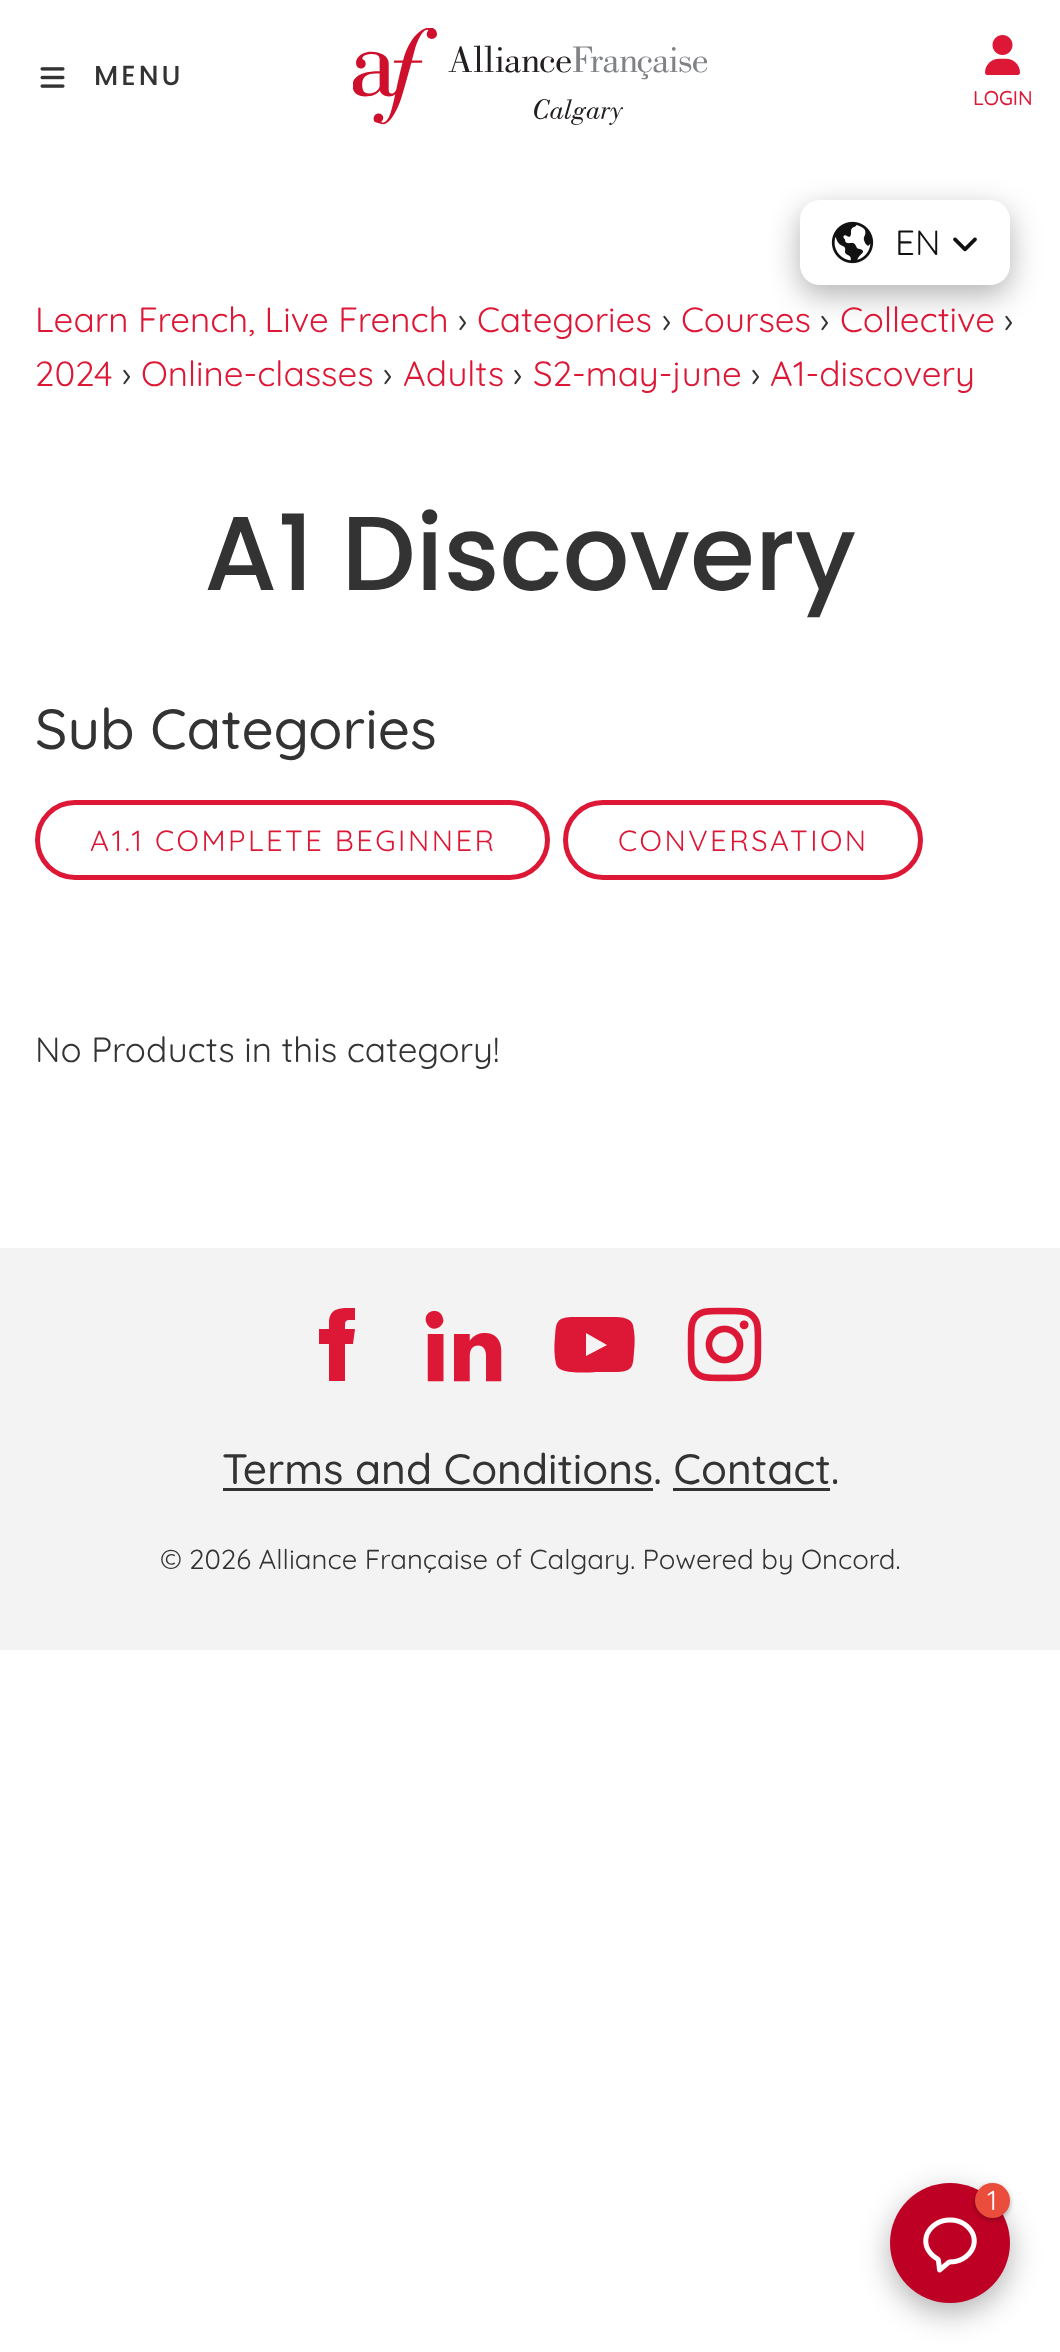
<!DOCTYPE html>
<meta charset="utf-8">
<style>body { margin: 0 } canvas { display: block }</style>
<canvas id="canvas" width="1060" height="2352"></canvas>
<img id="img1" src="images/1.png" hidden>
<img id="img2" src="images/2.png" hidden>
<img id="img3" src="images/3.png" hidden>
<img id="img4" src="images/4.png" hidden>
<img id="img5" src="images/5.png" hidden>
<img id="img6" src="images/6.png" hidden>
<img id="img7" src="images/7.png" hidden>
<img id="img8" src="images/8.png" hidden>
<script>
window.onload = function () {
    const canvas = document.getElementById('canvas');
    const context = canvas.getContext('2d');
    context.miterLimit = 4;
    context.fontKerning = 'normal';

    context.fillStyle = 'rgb(255, 255, 255)';
    context.fillRect(0, 0, 1060, 2352);
    context.drawImage(document.getElementById('img1'), 40, 67, 25, 21);
    context.drawImage(document.getElementById('img2'), 353, 28, 355, 97);
    context.drawImage(document.getElementById('img3'), 985, 35, 35, 40);
    context.fillStyle = 'rgba(0, 0, 0, 0.3)';
    context.filter = 'blur(15px)';
    context.beginPath();
    context.roundRect(800, 210, 210, 85, 20);
    context.fill();
    context.filter = 'none';
    context.fillStyle = 'rgb(255, 255, 255)';
    context.beginPath();
    context.roundRect(800, 200, 210, 85, 20);
    context.fill();
    context.drawImage(document.getElementById('img4'), 831, 221, 43, 43);
    context.drawImage(document.getElementById('img5'), 953, 237, 24, 15);
    context.beginPath();
    context.roundRect(37.5, 802.5, 510, 75, 37.5);
    context.strokeStyle = 'rgb(220, 24, 54)';
    context.lineWidth = 5;
    context.stroke();
    context.beginPath();
    context.roundRect(565.5, 802.5, 355, 75, 37.5);
    context.stroke();
    context.fillStyle = 'rgb(243, 243, 243)';
    context.fillRect(0, 1248, 1060, 402);
    context.fillStyle = 'rgb(220, 24, 54)';
    context.beginPath();
    context.moveTo(329, 1329);
    context.lineTo(319, 1329);
    context.lineTo(319, 1344);
    context.lineTo(329, 1344);
    context.lineTo(329, 1381);
    context.lineTo(345, 1381);
    context.lineTo(345, 1344);
    context.lineTo(353, 1344);
    context.lineTo(355, 1329);
    context.lineTo(345, 1329);
    context.bezierCurveTo(345, 1319, 345, 1320, 355, 1320);
    context.lineTo(355, 1308);
    context.bezierCurveTo(343, 1308, 329, 1306, 329, 1323);
    context.closePath();
    context.fill();
    context.drawImage(document.getElementById('img6'), 425, 1310, 77, 72);
    context.beginPath();
    context.moveTo(633, 1325);
    context.bezierCurveTo(632, 1322, 630, 1320, 627, 1319);
    context.bezierCurveTo(623, 1317, 617, 1317, 613, 1317);
    context.lineTo(591, 1317);
    context.lineTo(571, 1317);
    context.bezierCurveTo(556, 1318, 556, 1323, 555, 1337);
    context.bezierCurveTo(554, 1346, 554, 1355, 556, 1364);
    context.bezierCurveTo(557, 1367, 559, 1369, 562, 1370);
    context.bezierCurveTo(569, 1373, 587, 1373, 596, 1372);
    context.lineTo(618, 1372);
    context.bezierCurveTo(633, 1371, 633, 1366, 634, 1352);
    context.bezierCurveTo(635, 1343, 635, 1334, 633, 1325);
    context.closePath();
    context.moveTo(586, 1356);
    context.lineTo(586, 1333);
    context.lineTo(607, 1345);
    context.closePath();
    context.fill();
    context.drawImage(document.getElementById('img7'), 687, 1307, 75, 75);
    context.fillStyle = 'rgb(51, 51, 51)';
    context.fillRect(223, 1488, 430, 3);
    context.fillRect(673, 1488, 157, 3);
    context.fillStyle = 'rgba(0, 0, 0, 0.3)';
    context.filter = 'blur(15px)';
    context.beginPath();
    context.roundRect(890, 2193, 120, 120, 60);
    context.fill();
    context.filter = 'none';
    context.fillStyle = 'rgb(191, 0, 37)';
    context.beginPath();
    context.arc(950, 2243, 60, 0, 2 * Math.PI);
    context.fill();
    context.drawImage(document.getElementById('img8'), 923, 2217, 54, 56);
    context.fillStyle = 'rgba(0, 0, 0, 0.3)';
    context.filter = 'blur(2.5px)';
    context.beginPath();
    context.roundRect(975, 2185, 35, 35, 17.5);
    context.fill();
    context.filter = 'none';
    context.fillStyle = 'rgb(235, 77, 61)';
    context.beginPath();
    context.arc(992.5, 2200.5, 17.5, 0, 2 * Math.PI);
    context.fill();
    context.letterSpacing = '3px';
    context.font = '500 27.5px Poppins';
    context.fillStyle = 'rgb(51, 51, 51)';
    context.fillText('MENU', 94, 85);
    context.letterSpacing = '0px';
    context.font = '500 20px Quicksand';
    context.fillStyle = 'rgb(220, 24, 54)';
    context.fillText('LOGIN', 973, 105);
    context.font = '35px Quicksand';
    context.fillStyle = 'rgb(17, 17, 17)';
    context.fillText('EN', 895, 255);
    context.fillStyle = 'rgb(220, 24, 54)';
    context.fillText('Learn French, Live French', 35, 332);
    context.fillStyle = 'rgb(51, 51, 51)';
    context.fillText('›', 458, 332);
    context.fillStyle = 'rgb(220, 24, 54)';
    context.fillText('Categories', 477, 332);
    context.fillStyle = 'rgb(51, 51, 51)';
    context.fillText('›', 662, 332);
    context.fillStyle = 'rgb(220, 24, 54)';
    context.fillText('Courses', 681, 332);
    context.fillStyle = 'rgb(51, 51, 51)';
    context.fillText('›', 820, 332);
    context.fillStyle = 'rgb(220, 24, 54)';
    context.fillText('Collective', 840, 332);
    context.fillStyle = 'rgb(51, 51, 51)';
    context.fillText('›', 1004, 332);
    context.fillStyle = 'rgb(220, 24, 54)';
    context.fillText('2024', 35, 386);
    context.fillStyle = 'rgb(51, 51, 51)';
    context.fillText('›', 122, 386);
    context.fillStyle = 'rgb(220, 24, 54)';
    context.fillText('Online-classes', 141, 386);
    context.fillStyle = 'rgb(51, 51, 51)';
    context.fillText('›', 383, 386);
    context.fillStyle = 'rgb(220, 24, 54)';
    context.fillText('Adults', 403, 386);
    context.fillStyle = 'rgb(51, 51, 51)';
    context.fillText('›', 513, 386);
    context.fillStyle = 'rgb(220, 24, 54)';
    context.fillText('S2-may-june', 533, 386);
    context.fillStyle = 'rgb(51, 51, 51)';
    context.fillText('›', 751, 386);
    context.fillStyle = 'rgb(220, 24, 54)';
    context.fillText('A1-discovery', 770, 386);
    context.font = '500 105px Poppins';
    context.fillStyle = 'rgb(51, 51, 51)';
    context.fillText('A1 Discovery', 204, 590);
    context.font = '500 56.5px Quicksand';
    context.fillText('Sub Categories', 35, 749);
    context.letterSpacing = '2.5px';
    context.font = '29.2px Quicksand';
    context.fillStyle = 'rgb(220, 24, 54)';
    context.fillText('A1.1 COMPLETE BEGINNER', 90, 851);
    context.fillText('CONVERSATION', 618, 851);
    context.letterSpacing = '0px';
    context.font = '35px Quicksand';
    context.fillStyle = 'rgb(51, 51, 51)';
    context.fillText('No Products in this category!', 35, 1062);
    context.font = '500 42.5px Quicksand';
    context.fillText('Terms and Conditions. Contact.', 222, 1484);
    context.font = '27.5px Quicksand';
    context.fillText('© 2026 Alliance Française of Calgary. Powered by Oncord.', 160, 1569);
    context.fillStyle = 'rgb(255, 255, 255)';
    context.fillText('1', 987, 2210);
};
</script>
